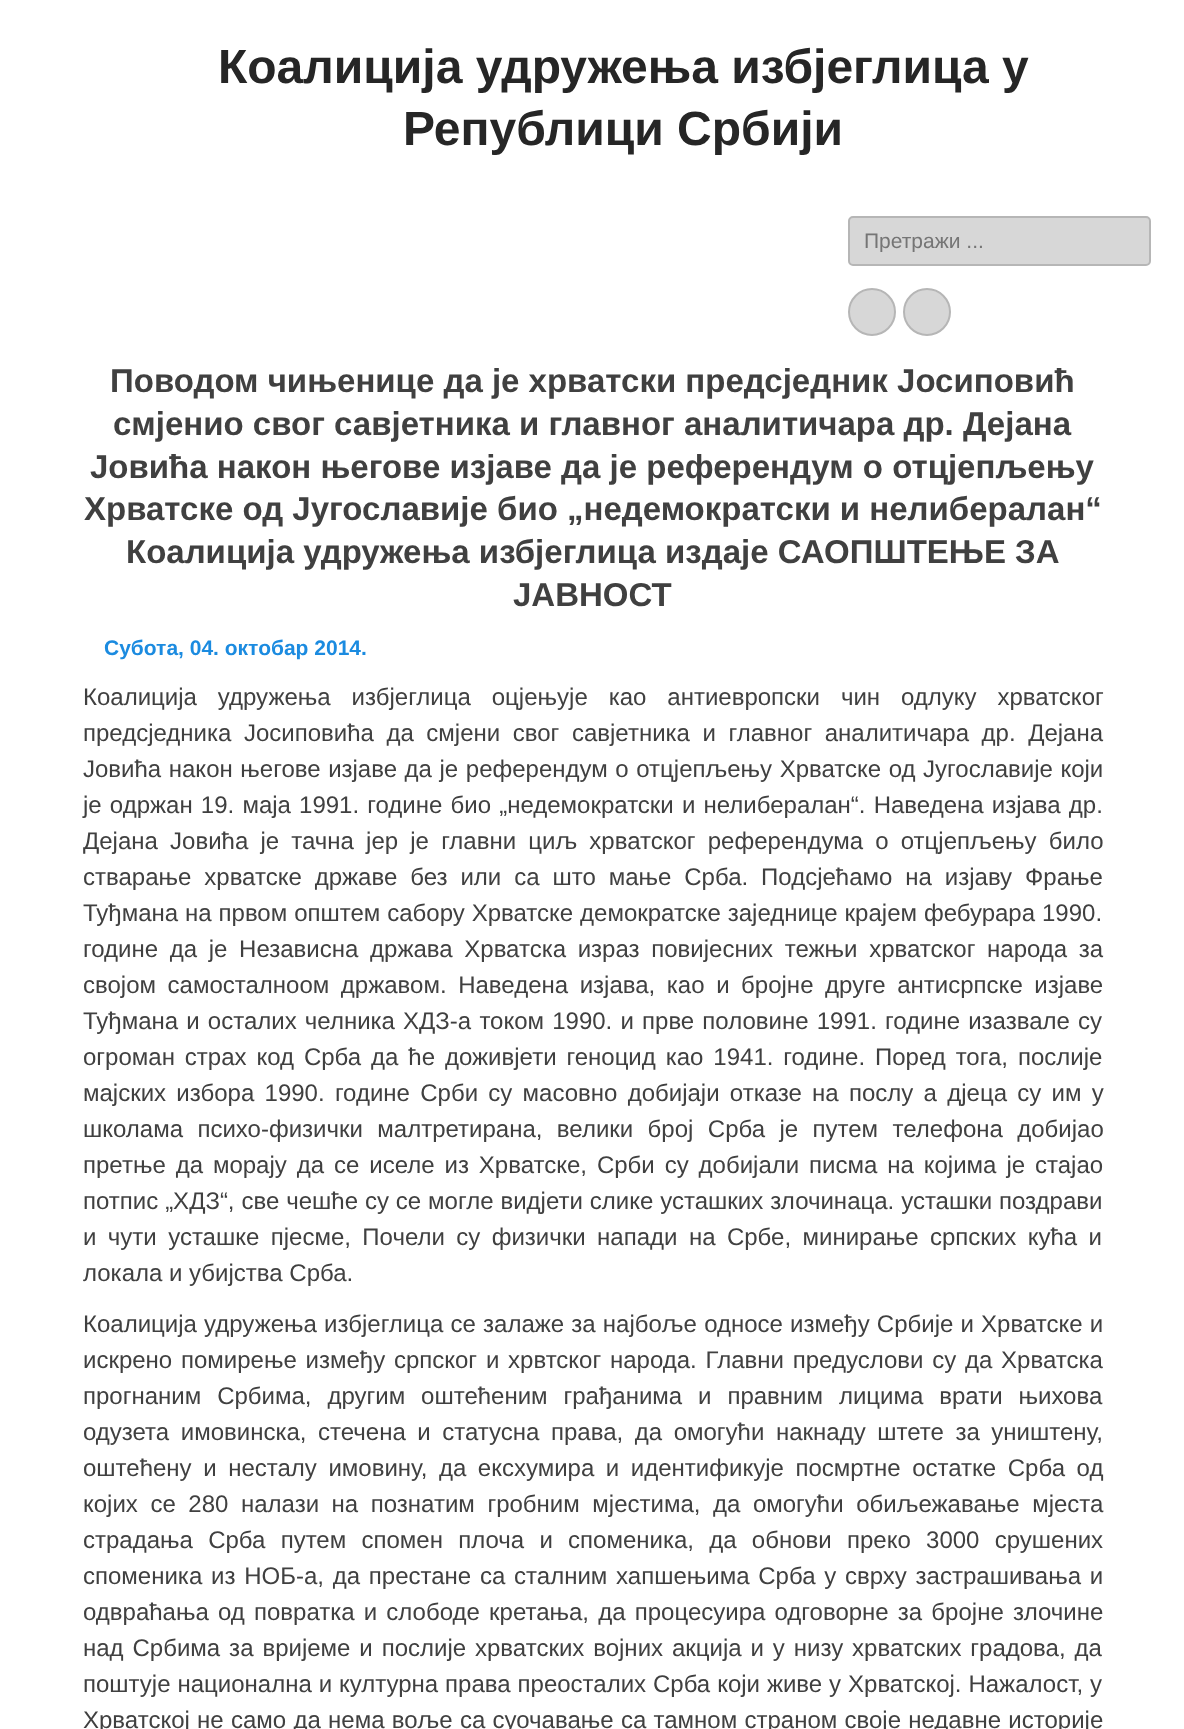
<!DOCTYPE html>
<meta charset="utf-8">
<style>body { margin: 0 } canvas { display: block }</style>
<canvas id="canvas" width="1184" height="1729"></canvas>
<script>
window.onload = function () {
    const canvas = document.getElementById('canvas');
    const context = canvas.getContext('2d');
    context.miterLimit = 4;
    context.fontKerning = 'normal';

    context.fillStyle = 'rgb(255, 255, 255)';
    context.fillRect(0, 0, 1184, 1729);
    context.fillStyle = 'rgb(215, 215, 215)';
    context.beginPath();
    context.roundRect(849, 217, 301, 48, 4);
    context.fill();
    context.strokeStyle = 'rgb(182, 182, 182)';
    context.lineWidth = 2;
    context.stroke();
    context.beginPath();
    context.arc(872, 312, 23, 0, 2 * Math.PI);
    context.fill();
    context.stroke();
    context.beginPath();
    context.arc(927, 312, 23, 0, 2 * Math.PI);
    context.fill();
    context.stroke();
    context.font = 'bold 48px Liberation Sans';
    context.fillStyle = 'rgb(38, 38, 38)';
    context.fillText('Коалиција удружења избјеглица у', 218, 83);
    context.fillText('Републици Србији', 403, 145);
    context.save();
    context.beginPath();
    context.rect(864, 228, 249, 24);
    context.clip();
    context.font = '21px Liberation Sans';
    context.fillStyle = 'rgb(117, 117, 117)';
    context.fillText('Претражи ...', 864, 248);
    context.restore();
    context.font = 'bold 33px Liberation Sans';
    context.fillStyle = 'rgb(64, 64, 64)';
    context.fillText('Поводом чињенице да је хрватски предсједник Јосиповић', 110, 392);
    context.fillText('смјенио свог савјетника и главног аналитичара др. Дејана', 113, 435);
    context.fillText('Јовића након његове изјаве да је референдум о отцјепљењу', 90, 478);
    context.fillText('Хрватске од Југославије био „недемократски и нелибералан“', 84, 520);
    context.fillText('Коалиција удружења избјеглица издаје САОПШТЕЊЕ ЗА', 126, 563);
    context.fillText('ЈАВНОСТ', 513, 606);
    context.font = 'bold 21px Liberation Sans';
    context.fillStyle = 'rgb(27, 139, 224)';
    context.fillText('Субота, 04. октобар 2014.', 104, 655);
    context.wordSpacing = '14.25px';
    context.font = '24px Liberation Sans';
    context.fillStyle = 'rgb(64, 64, 64)';
    context.fillText('Коалиција удружења избјеглица оцјењује као антиевропски чин одлуку хрватског', 83, 705);
    context.wordSpacing = '5.9px';
    context.fillText('предсједника Јосиповића да смјени свог савјетника и главног аналитичара др. Дејана', 83, 741);
    context.wordSpacing = '0.9px';
    context.fillText('Јовића након његове изјаве да је референдум о отцјепљењу Хрватске од Југославије који', 83, 777);
    context.wordSpacing = '1.5px';
    context.fillText('је одржан 19. маја 1991. године био „недемократски и нелибералан“. Наведена изјава др.', 83, 813);
    context.wordSpacing = '5.5px';
    context.fillText('Дејана Јовића је тачна јер је главни циљ хрватског референдума о отцјепљењу било', 83, 849);
    context.wordSpacing = '6.25px';
    context.fillText('стварање хрватске државе без или са што мање Срба. Подсјећамо на изјаву Фрање', 83, 885);
    context.wordSpacing = '0.25px';
    context.fillText('Туђмана на првом општем сабору Хрватске демократске заједнице крајем фебурара 1990.', 83, 921);
    context.wordSpacing = '5px';
    context.fillText('године да је Независна држава Хрватска израз повијесних тежњи хрватског народа за', 83, 957);
    context.wordSpacing = '4.9px';
    context.fillText('својом самосталноом државом. Наведена изјава, као и бројне друге антисрпске изјаве', 83, 993);
    context.wordSpacing = '1.5px';
    context.fillText('Туђмана и осталих челника ХДЗ-а током 1990. и прве половине 1991. године изазвале су', 83, 1029);
    context.wordSpacing = '3.25px';
    context.fillText('огроман страх код Срба да ће доживјети геноцид као 1941. године. Поред тога, послије', 83, 1065);
    context.wordSpacing = '3.6px';
    context.fillText('мајских избора 1990. године Срби су масовно добијаји отказе на послу а дјеца су им у', 83, 1101);
    context.wordSpacing = '7.75px';
    context.fillText('школама психо-физички малтретирана, велики број Срба је путем телефона добијао', 83, 1137);
    context.wordSpacing = '3.25px';
    context.fillText('претње да морају да се иселе из Хрватске, Срби су добијали писма на којима је стајао', 83, 1173);
    context.wordSpacing = '0.25px';
    context.fillText('потпис „ХДЗ“, све чешће су се могле видјети слике усташких злочинаца. усташки поздрави', 83, 1209);
    context.wordSpacing = '4.75px';
    context.fillText('и чути усташке пјесме, Почели су физички напади на Србе, минирање српских кућа и', 83, 1245);
    context.wordSpacing = '0px';
    context.fillText('локала и убијства Срба.', 83, 1281);
    context.wordSpacing = '0.5px';
    context.fillText('Коалиција удружења избјеглица се залаже за најбоље односе између Србије и Хрватске и', 83, 1332);
    context.wordSpacing = '2.1px';
    context.fillText('искрено помирење између српског и хрвтског народа. Главни предуслови су да Хрватска', 83, 1368);
    context.wordSpacing = '9.25px';
    context.fillText('прогнаним Србима, другим оштећеним грађанима и правним лицима врати њихова', 83, 1404);
    context.wordSpacing = '4.9px';
    context.fillText('одузета имовинска, стечена и статусна права, да омогући накнаду штете за уништену,', 83, 1440);
    context.fillText('оштећену и несталу имовину, да ексхумира и идентификује посмртне остатке Срба од', 83, 1476);
    context.wordSpacing = '5.9px';
    context.fillText('којих се 280 налази на познатим гробним мјестима, да омогући обиљежавање мјеста', 83, 1512);
    context.wordSpacing = '8.6px';
    context.fillText('страдања Срба путем спомен плоча и споменика, да обнови преко 3000 срушених', 83, 1548);
    context.wordSpacing = '2.1px';
    context.fillText('споменика из НОБ-а, да престане са сталним хапшењима Срба у сврху застрашивања и', 83, 1584);
    context.wordSpacing = '2.5px';
    context.fillText('одвраћања од повратка и слободе кретања, да процесуира одговорне за бројне злочине', 83, 1620);
    context.wordSpacing = '2.25px';
    context.fillText('над Србима за вријеме и послије хрватских војних акција и у низу хрватских градова, да', 83, 1656);
    context.wordSpacing = '0.25px';
    context.fillText('поштује национална и културна права преосталих Срба који живе у Хрватској. Нажалост, у', 83, 1692);
    context.wordSpacing = '0.6px';
    context.fillText('Хрватској не само да нема воље са суочавање са тамном страном своје недавне историје', 83, 1728);
};
</script>
